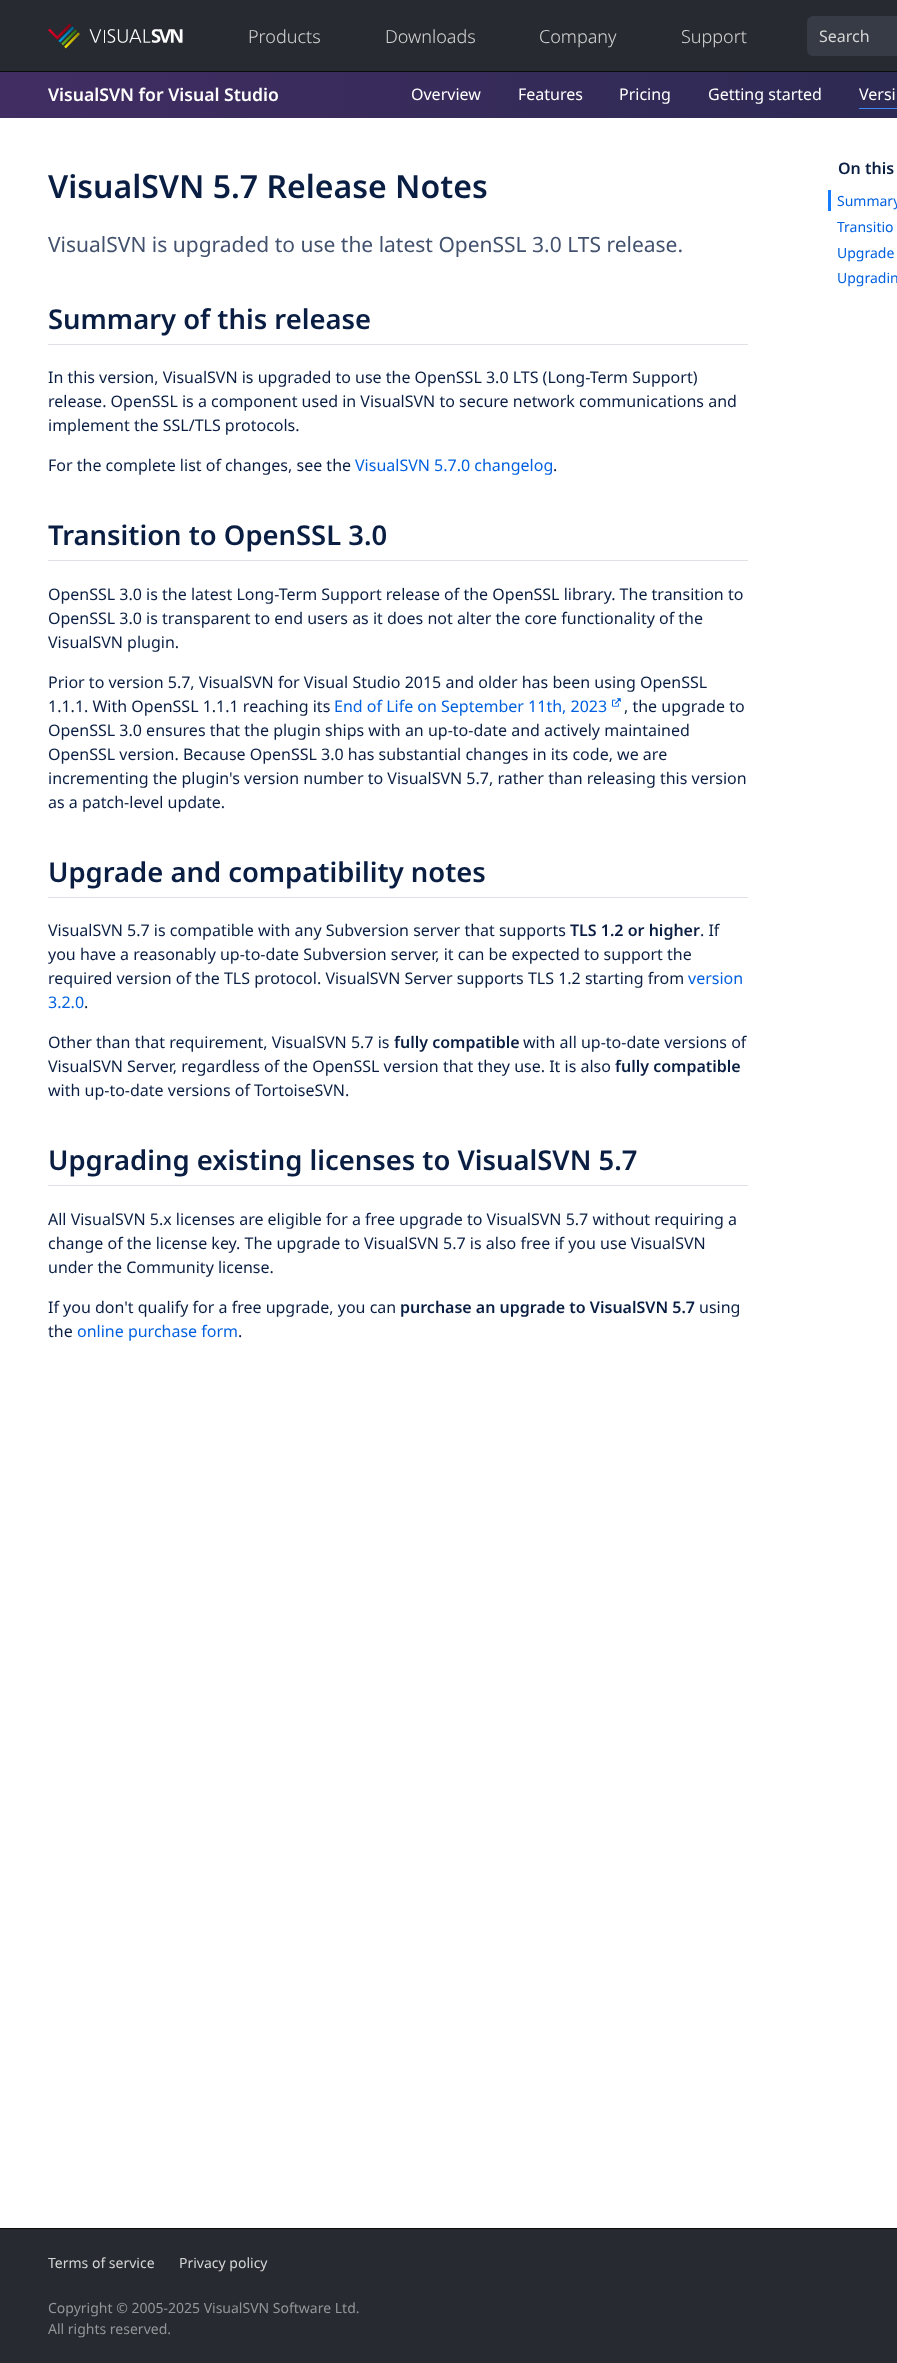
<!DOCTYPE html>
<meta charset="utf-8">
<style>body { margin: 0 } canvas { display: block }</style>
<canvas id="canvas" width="897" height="2363"></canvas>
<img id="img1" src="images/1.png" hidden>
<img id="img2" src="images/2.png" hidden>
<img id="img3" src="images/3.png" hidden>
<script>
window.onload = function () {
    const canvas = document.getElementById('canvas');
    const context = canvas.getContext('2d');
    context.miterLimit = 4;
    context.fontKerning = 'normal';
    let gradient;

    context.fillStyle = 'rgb(39, 42, 48)';
    context.fillRect(0, 0, 897, 2363);
    context.fillStyle = 'rgb(12, 12, 13)';
    context.fillRect(0, 71, 897, 1);
    context.drawImage(document.getElementById('img1'), 48, 23, 32, 26);
    context.drawImage(document.getElementById('img2'), 89, 29, 94, 14);
    context.fillStyle = 'rgb(54, 59, 69)';
    context.beginPath();
    context.roundRect(807, 16, 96, 40, 6);
    context.fill();
    gradient = context.createLinearGradient(0, 95, 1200, 94);
    gradient.addColorStop(0, 'rgb(65, 45, 98)');
    gradient.addColorStop(1, 'rgb(38, 41, 78)');
    context.fillStyle = gradient;
    context.fillRect(0, 72, 897, 46);
    context.fillStyle = 'rgb(66, 133, 244)';
    context.fillRect(859, 108, 38, 1);
    context.fillStyle = 'rgb(255, 255, 255)';
    context.fillRect(0, 118, 897, 2110);
    context.fillStyle = 'rgb(222, 226, 230)';
    context.fillRect(48, 344, 700, 1);
    context.fillRect(48, 560, 700, 1);
    context.drawImage(document.getElementById('img3'), 612, 698, 9, 9);
    context.fillRect(48, 897, 700, 1);
    context.fillRect(48, 1185, 700, 1);
    context.fillStyle = 'rgb(22, 125, 255)';
    context.fillRect(828, 190, 3, 21);
    context.fillStyle = 'rgb(12, 12, 13)';
    context.fillRect(0, 2228, 897, 1);
    context.font = '300 18px Noto Sans';
    context.fillStyle = 'rgb(213, 213, 213)';
    context.fillText('Products', 248, 43);
    context.fillText('Downloads', 385, 43);
    context.fillText('Company', 539, 43);
    context.fillText('Support', 681, 43);
    context.font = '16px Noto Sans';
    context.fillText('Search', 819, 42);
    context.font = '600 17.6px Noto Sans';
    context.fillStyle = 'rgb(255, 255, 255)';
    context.fillText('VisualSVN for Visual Studio', 48, 101);
    context.font = '16px Noto Sans';
    context.fillText('Overview', 411, 100);
    context.fillText('Features', 518, 100);
    context.fillText('Pricing', 619, 100);
    context.fillText('Getting started', 708, 100);
    context.fillText('Versi', 859, 100);
    context.font = '600 32px Noto Sans';
    context.fillStyle = 'rgb(9, 30, 66)';
    context.fillText('VisualSVN 5.7 Release Notes', 48, 198);
    context.font = '21px Noto Sans';
    context.fillStyle = 'rgb(66, 82, 110)';
    context.fillText('VisualSVN is upgraded to use the latest OpenSSL 3.0 LTS release.', 48, 252);
    context.font = '600 27.4px Noto Sans';
    context.fillStyle = 'rgb(9, 30, 66)';
    context.fillText('Summary of this release', 48, 329);
    context.font = '16px Noto Sans';
    context.fillText('In this version, VisualSVN is upgraded to use the OpenSSL 3.0 LTS (Long-Term Support)', 48, 383);
    context.fillText('release. OpenSSL is a component used in VisualSVN to secure network communications and', 48, 407);
    context.fillText('implement the SSL/TLS protocols.', 48, 431);
    context.fillText('For the complete list of changes, see the', 48, 471);
    context.fillStyle = 'rgb(0, 96, 223)';
    context.fillText('VisualSVN 5.7.0 changelog', 355, 471);
    context.fillStyle = 'rgb(9, 30, 66)';
    context.fillText('.', 553, 471);
    context.font = '600 27.4px Noto Sans';
    context.fillText('Transition to OpenSSL 3.0', 48, 545);
    context.font = '16px Noto Sans';
    context.fillText('OpenSSL 3.0 is the latest Long-Term Support release of the OpenSSL library. The transition to', 48, 600);
    context.fillText('OpenSSL 3.0 is transparent to end users as it does not alter the core functionality of the', 48, 624);
    context.fillText('VisualSVN plugin.', 48, 648);
    context.fillText('Prior to version 5.7, VisualSVN for Visual Studio 2015 and older has been using OpenSSL', 48, 688);
    context.fillText('1.1.1. With OpenSSL 1.1.1 reaching its', 48, 712);
    context.fillStyle = 'rgb(0, 96, 223)';
    context.fillText('End of Life on September 11th, 2023', 334, 712);
    context.fillStyle = 'rgb(9, 30, 66)';
    context.fillText(', the upgrade to', 624, 712);
    context.fillText('OpenSSL 3.0 ensures that the plugin ships with an up-to-date and actively maintained', 48, 736);
    context.fillText('OpenSSL version. Because OpenSSL 3.0 has substantial changes in its code, we are', 48, 760);
    context.fillText('incrementing the plugin\'s version number to VisualSVN 5.7, rather than releasing this version', 48, 784);
    context.fillText('as a patch-level update.', 48, 808);
    context.font = '600 27.4px Noto Sans';
    context.fillText('Upgrade and compatibility notes', 48, 882);
    context.font = '16px Noto Sans';
    context.fillText('VisualSVN 5.7 is compatible with any Subversion server that supports', 48, 936);
    context.font = '600 16px Noto Sans';
    context.fillText('TLS 1.2 or higher', 570, 936);
    context.font = '16px Noto Sans';
    context.fillText('. If', 700, 936);
    context.fillText('you have a reasonably up-to-date Subversion server, it can be expected to support the', 48, 960);
    context.fillText('required version of the TLS protocol. VisualSVN Server supports TLS 1.2 starting from', 48, 984);
    context.fillStyle = 'rgb(0, 96, 223)';
    context.fillText('version', 688, 984);
    context.fillText('3.2.0', 48, 1008);
    context.fillStyle = 'rgb(9, 30, 66)';
    context.fillText('.', 84, 1008);
    context.fillText('Other than that requirement, VisualSVN 5.7 is', 48, 1048);
    context.font = '600 16px Noto Sans';
    context.fillText('fully compatible', 394, 1048);
    context.font = '16px Noto Sans';
    context.fillText('with all up-to-date versions of', 523, 1048);
    context.fillText('VisualSVN Server, regardless of the OpenSSL version that they use. It is also', 48, 1072);
    context.font = '600 16px Noto Sans';
    context.fillText('fully compatible', 615, 1072);
    context.font = '16px Noto Sans';
    context.fillText('with up-to-date versions of TortoiseSVN.', 48, 1096);
    context.font = '600 27.4px Noto Sans';
    context.fillText('Upgrading existing licenses to VisualSVN 5.7', 48, 1170);
    context.font = '16px Noto Sans';
    context.fillText('All VisualSVN 5.x licenses are eligible for a free upgrade to VisualSVN 5.7 without requiring a', 48, 1225);
    context.fillText('change of the license key. The upgrade to VisualSVN 5.7 is also free if you use VisualSVN', 48, 1249);
    context.fillText('under the Community license.', 48, 1273);
    context.fillText('If you don\'t qualify for a free upgrade, you can', 48, 1313);
    context.font = '600 16px Noto Sans';
    context.fillText('purchase an upgrade to VisualSVN 5.7', 400, 1313);
    context.font = '16px Noto Sans';
    context.fillText('using', 699, 1313);
    context.fillText('the', 48, 1337);
    context.fillStyle = 'rgb(0, 96, 223)';
    context.fillText('online purchase form', 77, 1337);
    context.fillStyle = 'rgb(9, 30, 66)';
    context.fillText('.', 238, 1337);
    context.font = '600 16px Noto Sans';
    context.fillText('On this', 838, 174);
    context.font = '14px Noto Sans';
    context.fillStyle = 'rgb(0, 96, 223)';
    context.fillText('Summary', 837, 206);
    context.fillText('Transitio', 837, 232);
    context.fillText('Upgrade', 837, 258);
    context.fillText('Upgradin', 837, 283);
    context.fillStyle = 'rgb(213, 213, 213)';
    context.fillText('Terms of service', 48, 2268);
    context.fillText('Privacy policy', 179, 2268);
    context.fillStyle = 'rgb(147, 149, 152)';
    context.fillText('Copyright © 2005-2025 VisualSVN Software Ltd.', 48, 2313);
    context.fillText('All rights reserved.', 48, 2334);
};
</script>
